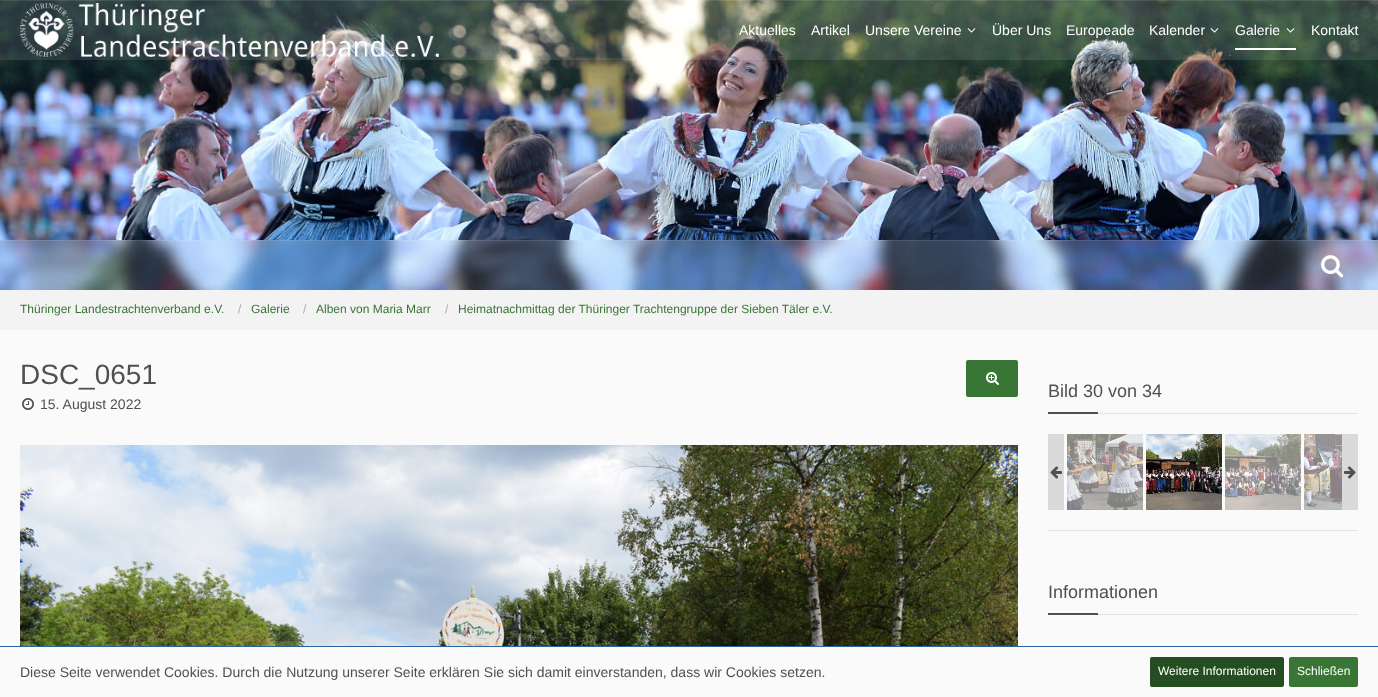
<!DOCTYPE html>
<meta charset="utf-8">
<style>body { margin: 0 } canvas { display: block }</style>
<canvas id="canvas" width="1378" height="697"></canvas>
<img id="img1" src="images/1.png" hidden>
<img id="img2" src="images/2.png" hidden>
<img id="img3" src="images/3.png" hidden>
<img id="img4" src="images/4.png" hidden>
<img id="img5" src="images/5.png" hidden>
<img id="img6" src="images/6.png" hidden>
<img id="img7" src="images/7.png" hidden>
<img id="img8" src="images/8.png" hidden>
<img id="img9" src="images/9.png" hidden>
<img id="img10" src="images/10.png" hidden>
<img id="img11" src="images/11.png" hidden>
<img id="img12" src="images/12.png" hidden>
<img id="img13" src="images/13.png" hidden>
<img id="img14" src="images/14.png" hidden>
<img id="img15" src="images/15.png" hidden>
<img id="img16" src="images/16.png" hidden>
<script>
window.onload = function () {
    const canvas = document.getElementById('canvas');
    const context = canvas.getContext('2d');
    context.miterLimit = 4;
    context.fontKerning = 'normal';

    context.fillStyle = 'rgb(243, 243, 243)';
    context.fillRect(0, 0, 1378, 697);
    context.drawImage(document.getElementById('img1'), 0, 0, 1378, 240);
    context.fillStyle = 'rgba(255, 255, 255, 0.1)';
    context.fillRect(0, 0, 1378, 60);
    context.fillRect(0, 0, 1378, 1);
    context.drawImage(document.getElementById('img2'), 20, 3, 419, 54);
    context.drawImage(document.getElementById('img3'), 967, 28, 9, 5);
    context.drawImage(document.getElementById('img4'), 1210, 28, 9, 5);
    context.fillStyle = 'rgb(255, 255, 255)';
    context.fillRect(1235, 48, 61, 2);
    context.drawImage(document.getElementById('img5'), 1286, 28, 9, 5);
    context.drawImage(document.getElementById('img6'), 0, 240, 1378, 50);
    context.fillStyle = 'rgba(255, 255, 255, 0.1)';
    context.fillRect(0, 240, 1378, 1);
    context.drawImage(document.getElementById('img7'), 1321, 255, 23, 23);
    context.fillStyle = 'rgb(250, 250, 250)';
    context.fillRect(0, 330, 1378, 316);
    context.drawImage(document.getElementById('img8'), 22, 398, 12, 12);
    context.fillStyle = 'rgb(57, 117, 52)';
    context.beginPath();
    context.roundRect(966, 360, 52, 37, 2);
    context.fill();
    context.drawImage(document.getElementById('img9'), 986, 372, 13, 13);
    context.drawImage(document.getElementById('img10'), 20, 445, 998, 201);
    context.fillStyle = 'rgb(228, 228, 228)';
    context.fillRect(1048, 530, 310, 1);
    context.fillRect(1098, 413, 260, 1);
    context.fillStyle = 'rgb(80, 80, 80)';
    context.fillRect(1048, 412, 50, 2);
    context.fillStyle = 'rgb(218, 218, 218)';
    context.fillRect(1048, 434, 16, 76);
    context.drawImage(document.getElementById('img11'), 1050, 466, 12, 13);
    context.drawImage(document.getElementById('img12'), 1067, 434, 76, 76);
    context.drawImage(document.getElementById('img13'), 1146, 434, 76, 76);
    context.drawImage(document.getElementById('img14'), 1225, 434, 76, 76);
    context.drawImage(document.getElementById('img15'), 1304, 434, 38, 76);
    context.fillRect(1342, 434, 16, 76);
    context.drawImage(document.getElementById('img16'), 1344, 466, 12, 13);
    context.fillStyle = 'rgb(228, 228, 228)';
    context.fillRect(1098, 614, 260, 1);
    context.fillStyle = 'rgb(80, 80, 80)';
    context.fillRect(1048, 613, 50, 2);
    context.fillStyle = 'rgb(250, 250, 250)';
    context.fillRect(0, 647, 1378, 50);
    context.fillStyle = 'rgb(42, 99, 157)';
    context.fillRect(0, 646, 1378, 1);
    context.fillStyle = 'rgb(37, 77, 34)';
    context.beginPath();
    context.roundRect(1150, 657, 134, 30, 2);
    context.fill();
    context.fillStyle = 'rgb(57, 117, 52)';
    context.beginPath();
    context.roundRect(1289, 657, 69, 30, 2);
    context.fill();
    context.font = '14px Liberation Sans';
    context.fillStyle = 'rgb(255, 255, 255)';
    context.fillText('Aktuelles', 739, 35);
    context.fillText('Artikel', 811, 35);
    context.fillText('Unsere Vereine', 865, 35);
    context.fillText('Über Uns', 992, 35);
    context.fillText('Europeade', 1066, 35);
    context.fillText('Kalender', 1149, 35);
    context.fillText('Galerie', 1235, 35);
    context.fillText('Kontakt', 1311, 35);
    context.font = '12px Liberation Sans';
    context.fillStyle = 'rgb(57, 117, 52)';
    context.fillText('Thüringer Landestrachtenverband e.V.', 20, 313);
    context.fillStyle = 'rgb(170, 170, 170)';
    context.fillText('/', 238, 313);
    context.fillStyle = 'rgb(57, 117, 52)';
    context.fillText('Galerie', 251, 313);
    context.fillStyle = 'rgb(170, 170, 170)';
    context.fillText('/', 303, 313);
    context.fillStyle = 'rgb(57, 117, 52)';
    context.fillText('Alben von Maria Marr', 316, 313);
    context.fillStyle = 'rgb(170, 170, 170)';
    context.fillText('/', 445, 313);
    context.fillStyle = 'rgb(57, 117, 52)';
    context.fillText('Heimatnachmittag der Thüringer Trachtengruppe der Sieben Täler e.V.', 458, 313);
    context.font = '28px Liberation Sans';
    context.fillStyle = 'rgb(80, 80, 80)';
    context.fillText('DSC_0651', 20, 384);
    context.font = '14px Liberation Sans';
    context.fillText('15. August 2022', 40, 409);
    context.font = '18px Liberation Sans';
    context.fillText('Bild 30 von 34', 1048, 397);
    context.fillText('Informationen', 1048, 598);
    context.font = '14px Liberation Sans';
    context.fillText('Diese Seite verwendet Cookies. Durch die Nutzung unserer Seite erklären Sie sich damit einverstanden, dass wir Cookies setzen.', 20, 677);
    context.font = '12px Liberation Sans';
    context.fillStyle = 'rgb(255, 255, 255)';
    context.fillText('Weitere Informationen', 1158, 675);
    context.fillText('Schließen', 1297, 675);
};
</script>
